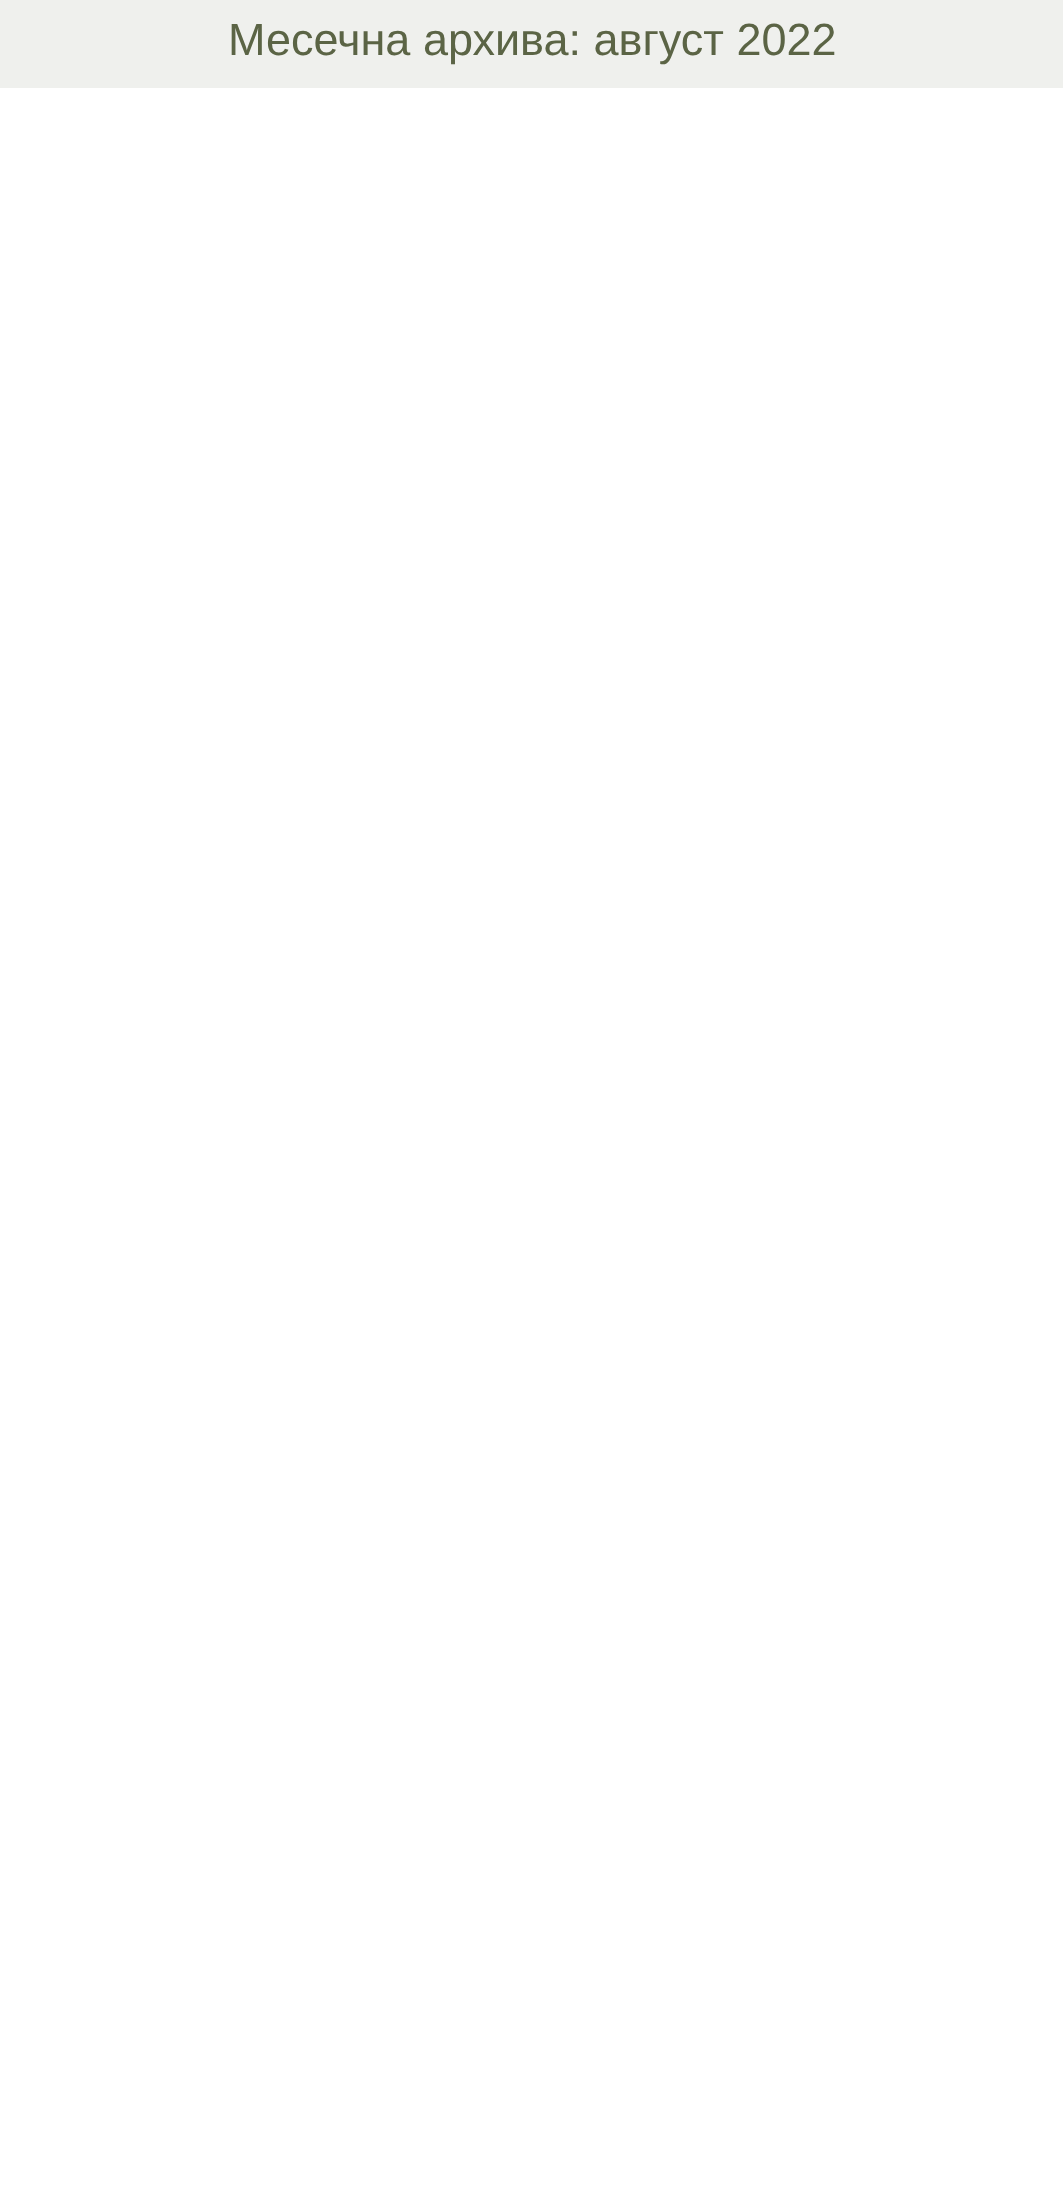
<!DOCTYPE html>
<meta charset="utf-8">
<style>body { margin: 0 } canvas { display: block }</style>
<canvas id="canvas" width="1063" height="2202"></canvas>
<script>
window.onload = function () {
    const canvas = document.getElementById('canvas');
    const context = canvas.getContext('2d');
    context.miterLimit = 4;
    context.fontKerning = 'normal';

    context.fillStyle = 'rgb(255, 255, 255)';
    context.fillRect(0, 0, 1063, 2202);
    context.fillStyle = 'rgb(239, 240, 237)';
    context.fillRect(0, 0, 1063, 88);
    context.font = '45px Liberation Sans';
    context.fillStyle = 'rgb(91, 100, 69)';
    context.fillText('Месечна архива: август 2022', 228, 55);
};
</script>
